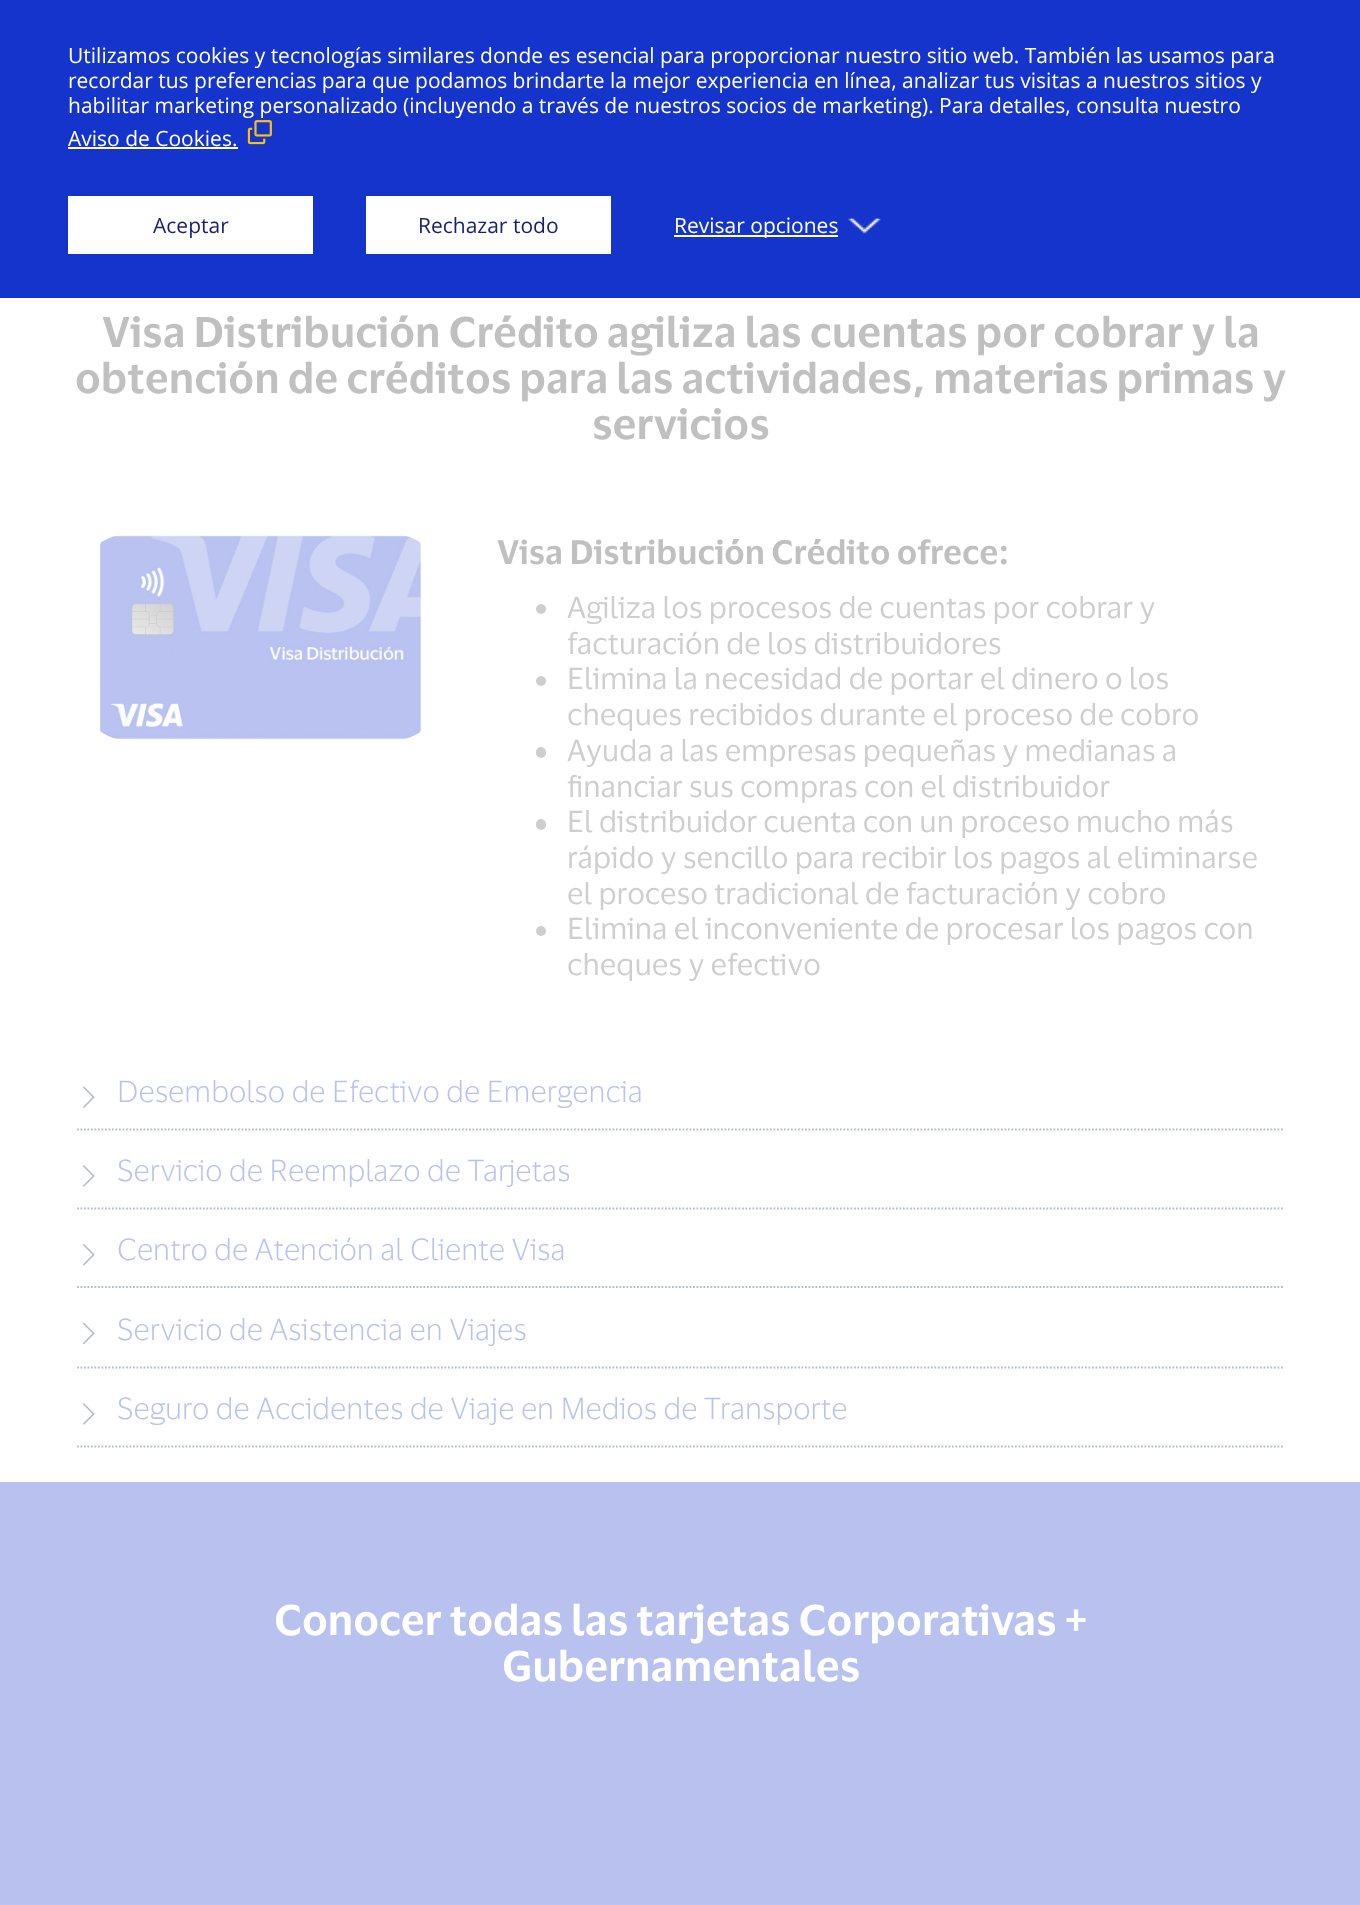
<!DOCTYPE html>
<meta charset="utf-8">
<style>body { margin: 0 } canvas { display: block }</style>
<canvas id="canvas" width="1360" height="1905"></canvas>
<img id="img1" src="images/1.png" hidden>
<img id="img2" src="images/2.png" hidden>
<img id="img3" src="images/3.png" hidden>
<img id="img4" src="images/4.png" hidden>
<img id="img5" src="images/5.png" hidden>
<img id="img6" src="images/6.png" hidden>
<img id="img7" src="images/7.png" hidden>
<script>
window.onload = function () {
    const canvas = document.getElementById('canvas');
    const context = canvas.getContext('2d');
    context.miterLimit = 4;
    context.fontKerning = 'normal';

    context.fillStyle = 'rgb(255, 255, 255)';
    context.fillRect(0, 0, 1360, 1905);
    context.fillStyle = 'rgb(20, 52, 203)';
    context.fillRect(0, 0, 1360, 298);
    context.fillStyle = 'rgb(255, 255, 255)';
    context.fillRect(68, 147, 170, 2);
    context.drawImage(document.getElementById('img1'), 247, 120, 25, 25);
    context.fillRect(68, 196, 245, 58);
    context.fillRect(366, 196, 245, 58);
    context.fillRect(674, 235, 164, 2);
    context.drawImage(document.getElementById('img2'), 848, 218, 33, 16);
    context.drawImage(document.getElementById('img3'), 99, 535, 323, 205);
    context.fillStyle = 'rgb(206, 206, 206)';
    context.beginPath();
    context.arc(541, 609, 5, 0, 2 * Math.PI);
    context.fill();
    context.beginPath();
    context.arc(541, 681, 5, 0, 2 * Math.PI);
    context.fill();
    context.beginPath();
    context.roundRect(536, 747, 10, 11, 5);
    context.fill();
    context.beginPath();
    context.roundRect(536, 819, 10, 11, 5);
    context.fill();
    context.beginPath();
    context.arc(541, 931, 5, 0, 2 * Math.PI);
    context.fill();
    context.beginPath();
    context.moveTo(77, 1129.5);
    context.lineTo(1284.5, 1129.5);
    context.strokeStyle = 'rgb(179, 188, 201)';
    context.lineWidth = 1.8;
    context.setLineDash([1.75, 1.75]);
    context.stroke();
    context.drawImage(document.getElementById('img4'), 83, 1086, 12, 22);
    context.beginPath();
    context.moveTo(77, 1208.5);
    context.lineTo(1284.5, 1208.5);
    context.stroke();
    context.drawImage(document.getElementById('img5'), 83, 1165, 12, 22);
    context.beginPath();
    context.moveTo(77, 1287);
    context.lineTo(1284.5, 1287);
    context.stroke();
    context.drawImage(document.getElementById('img6'), 83, 1244, 12, 22);
    context.beginPath();
    context.moveTo(77, 1367.5);
    context.lineTo(1284.5, 1367.5);
    context.stroke();
    context.drawImage(document.getElementById('img7'), 83, 1322, 12, 23);
    context.beginPath();
    context.moveTo(77, 1446.5);
    context.lineTo(1284.5, 1446.5);
    context.stroke();
    context.drawImage(document.getElementById('img5'), 83, 1403, 12, 22);
    context.fillStyle = 'rgb(185, 194, 239)';
    context.fillRect(0, 1482, 1360, 423);
    context.font = '21px Open Sans';
    context.fillStyle = 'rgb(255, 255, 255)';
    context.fillText('Utilizamos cookies y tecnologías similares donde es esencial para proporcionar nuestro sitio web. También las usamos para', 68, 63);
    context.fillText('recordar tus preferencias para que podamos brindarte la mejor experiencia en línea, analizar tus visitas a nuestros sitios y', 68, 88);
    context.fillText('habilitar marketing personalizado (incluyendo a través de nuestros socios de marketing). Para detalles, consulta nuestro', 68, 113);
    context.fillText('Aviso de Cookies.', 68, 146);
    context.fillStyle = 'rgb(26, 31, 114)';
    context.fillText('Aceptar', 153, 233);
    context.fillText('Rechazar todo', 418, 233);
    context.fillStyle = 'rgb(255, 255, 255)';
    context.fillText('Revisar opciones', 674, 233);
    context.font = '600 42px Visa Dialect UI';
    context.fillStyle = 'rgb(192, 192, 192)';
    context.fillText('Visa Distribución Crédito agiliza las cuentas por cobrar y la', 102, 347);
    context.fillText('obtención de créditos para las actividades, materias primas y', 75, 393);
    context.fillText('servicios', 592, 439);
    context.font = '600 33.25px Visa Dialect UI';
    context.fillText('Visa Distribución Crédito ofrece:', 497, 564);
    context.font = '29.75px Visa Dialect UI';
    context.fillStyle = 'rgb(206, 206, 206)';
    context.fillText('Agiliza los procesos de cuentas por cobrar y', 567, 618);
    context.fillText('facturación de los distribuidores', 567, 654);
    context.fillText('Elimina la necesidad de portar el dinero o los', 567, 689);
    context.fillText('cheques recibidos durante el proceso de cobro', 567, 725);
    context.fillText('Ayuda a las empresas pequeñas y medianas a', 567, 761);
    context.fillText('financiar sus compras con el distribuidor', 567, 797);
    context.fillText('El distribuidor cuenta con un proceso mucho más', 567, 832);
    context.fillText('rápido y sencillo para recibir los pagos al eliminarse', 567, 868);
    context.fillText('el proceso tradicional de facturación y cobro', 567, 904);
    context.fillText('Elimina el inconveniente de procesar los pagos con', 567, 939);
    context.fillText('cheques y efectivo', 567, 975);
    context.font = '300 29.75px Visa Dialect UI';
    context.fillStyle = 'rgb(185, 194, 239)';
    context.fillText('Desembolso de Efectivo de Emergencia', 117, 1102);
    context.fillText('Servicio de Reemplazo de Tarjetas', 117, 1181);
    context.fillText('Centro de Atención al Cliente Visa', 117, 1260);
    context.fillText('Servicio de Asistencia en Viajes', 117, 1340);
    context.fillText('Seguro de Accidentes de Viaje en Medios de Transporte', 117, 1419);
    context.font = '600 42px Visa Dialect UI';
    context.fillStyle = 'rgb(255, 255, 255)';
    context.fillText('Conocer todas las tarjetas Corporativas +', 274, 1635);
    context.fillText('Gubernamentales', 502, 1681);
};
</script>
